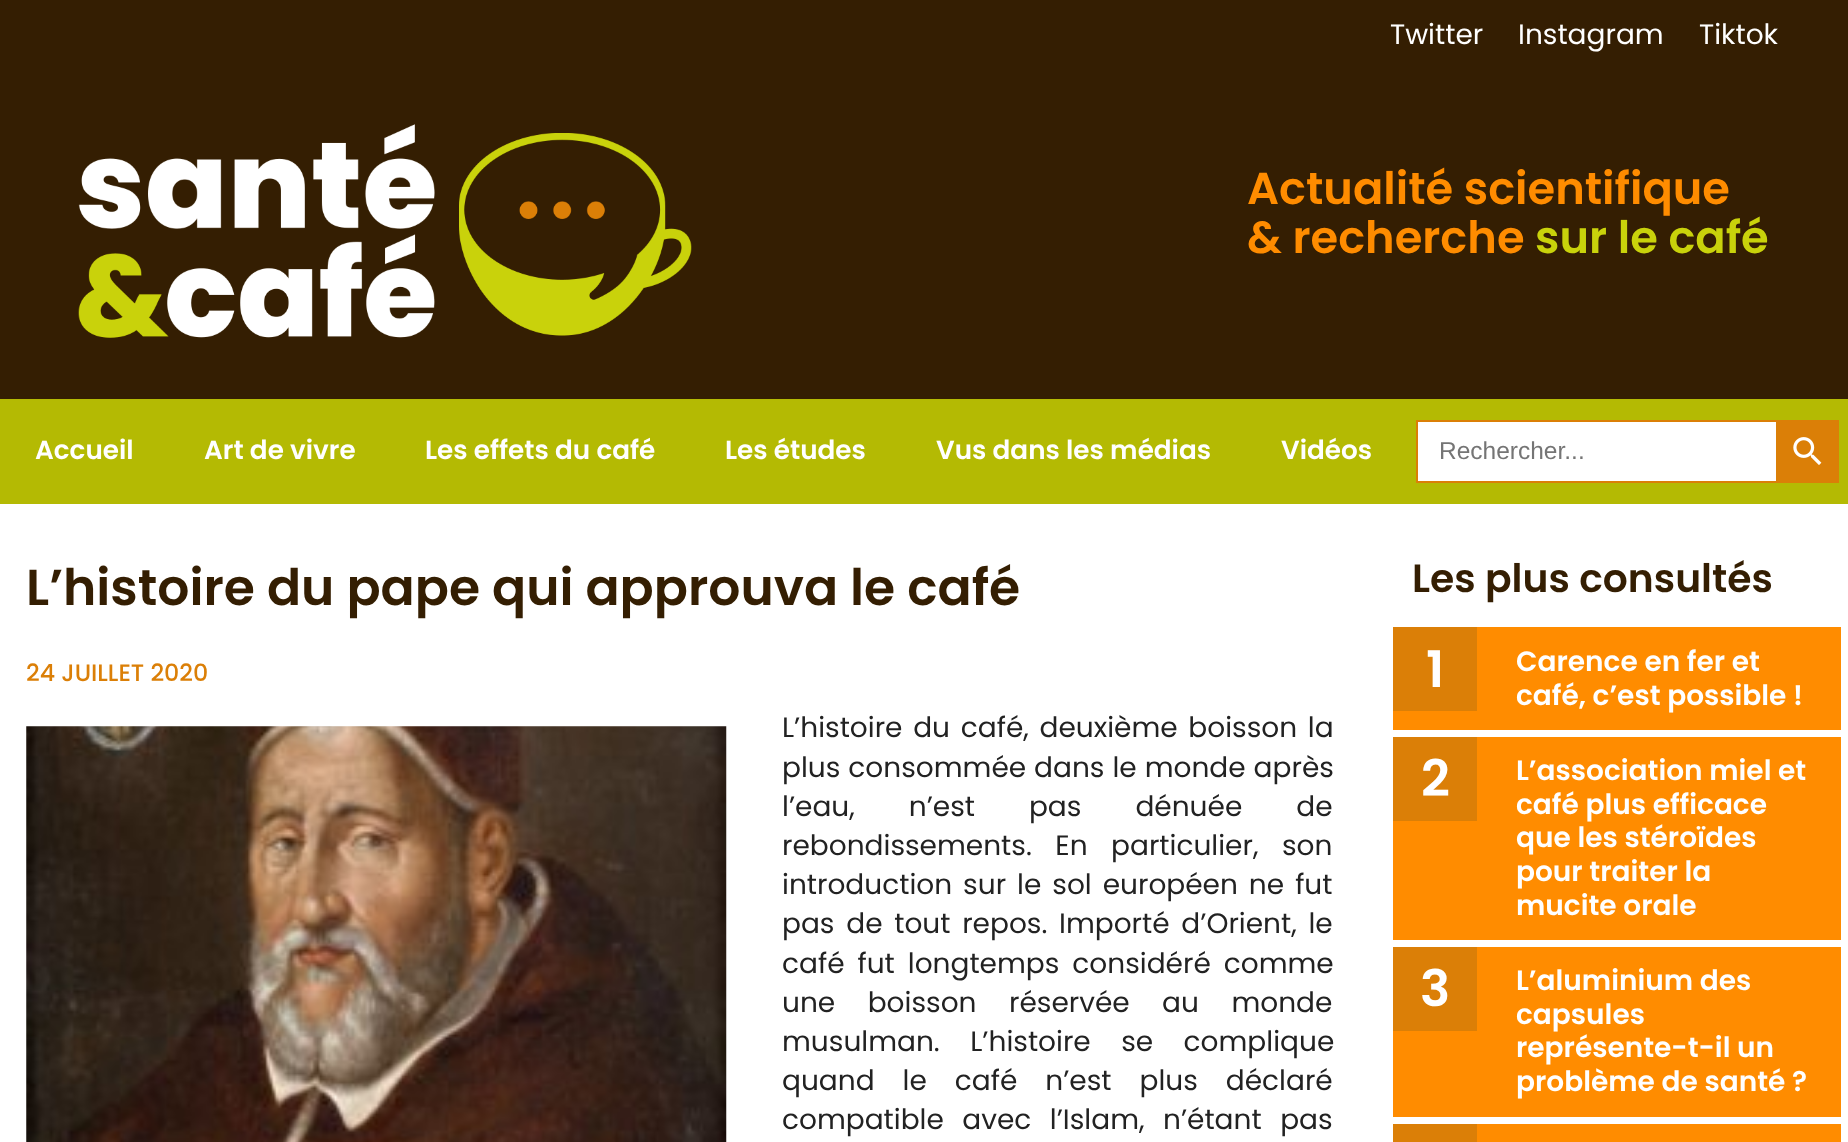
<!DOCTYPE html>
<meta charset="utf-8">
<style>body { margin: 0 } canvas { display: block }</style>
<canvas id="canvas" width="1848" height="1142"></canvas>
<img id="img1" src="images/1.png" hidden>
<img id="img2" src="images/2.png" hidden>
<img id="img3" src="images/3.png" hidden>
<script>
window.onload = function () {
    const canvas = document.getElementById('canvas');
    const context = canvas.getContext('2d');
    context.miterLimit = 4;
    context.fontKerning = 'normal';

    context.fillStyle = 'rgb(255, 255, 255)';
    context.fillRect(0, 0, 1848, 1142);
    context.fillStyle = 'rgb(52, 30, 2)';
    context.fillRect(0, 0, 1848, 399);
    context.drawImage(document.getElementById('img1'), 78, 124, 614, 214);
    context.fillStyle = 'rgb(180, 186, 3)';
    context.fillRect(0, 399, 1848, 105);
    context.fillStyle = 'rgb(255, 255, 255)';
    context.fillRect(1418, 422, 358, 59);
    context.fillStyle = 'rgb(219, 127, 7)';
    context.fillRect(1416, 420, 360, 2);
    context.fillRect(1416, 481, 360, 2);
    context.fillRect(1416, 420, 2, 63);
    context.fillRect(1776, 420, 63, 63);
    context.drawImage(document.getElementById('img2'), 1793, 437, 29, 28);
    context.drawImage(document.getElementById('img3'), 26, 726, 701, 416);
    context.fillStyle = 'rgb(255, 140, 0)';
    context.fillRect(1393, 627, 448, 103);
    context.fillStyle = 'rgb(219, 127, 7)';
    context.fillRect(1393, 627, 84, 84);
    context.fillStyle = 'rgb(255, 140, 0)';
    context.fillRect(1393, 737, 448, 203);
    context.fillStyle = 'rgb(219, 127, 7)';
    context.fillRect(1393, 737, 84, 84);
    context.fillStyle = 'rgb(255, 140, 0)';
    context.fillRect(1393, 947, 448, 170);
    context.fillStyle = 'rgb(219, 127, 7)';
    context.fillRect(1393, 947, 84, 84);
    context.fillStyle = 'rgb(255, 140, 0)';
    context.fillRect(1477, 1124, 364, 18);
    context.fillStyle = 'rgb(219, 127, 7)';
    context.fillRect(1393, 1124, 84, 18);
    context.font = '28px Poppins';
    context.fillStyle = 'rgb(255, 255, 255)';
    context.fillText('Twitter', 1390, 44);
    context.fillText('Instagram', 1518, 44);
    context.fillText('Tiktok', 1699, 44);
    context.font = '600 44.75px Poppins';
    context.fillStyle = 'rgb(255, 140, 0)';
    context.fillText('Actualité scientifique', 1247, 204);
    context.fillText('& recherche', 1247, 253);
    context.fillStyle = 'rgb(201, 210, 11)';
    context.fillText('sur le café', 1535, 253);
    context.font = '600 26.25px Poppins';
    context.fillStyle = 'rgb(255, 255, 255)';
    context.fillText('Accueil', 35, 459);
    context.fillText('Art de vivre', 204, 459);
    context.fillText('Les effets du café', 425, 459);
    context.fillText('Les études', 725, 459);
    context.fillText('Vus dans les médias', 936, 459);
    context.fillText('Vidéos', 1281, 459);
    context.font = '24.5px Liberation Sans';
    context.fillStyle = 'rgb(117, 117, 117)';
    context.fillText('Rechercher...', 1439, 459);
    context.font = '600 50.4px Poppins';
    context.fillStyle = 'rgb(52, 30, 2)';
    context.fillText('L’histoire du pape qui approuva le café', 26, 605);
    context.font = '500 23.75px Poppins';
    context.fillStyle = 'rgb(219, 127, 7)';
    context.fillText('24 JUILLET 2020', 26, 681);
    context.wordSpacing = '3.25px';
    context.font = '28px Poppins';
    context.fillStyle = 'rgb(34, 34, 34)';
    context.fillText('L’histoire du café, deuxième boisson la', 782, 737);
    context.wordSpacing = '0.5px';
    context.fillText('plus consommée dans le monde après', 782, 777);
    context.wordSpacing = '46.5px';
    context.fillText('l’eau, n’est pas dénuée de', 782, 816);
    context.wordSpacing = '16px';
    context.fillText('rebondissements. En particulier, son', 782, 855);
    context.wordSpacing = '3.5px';
    context.fillText('introduction sur le sol européen ne fut', 782, 894);
    context.wordSpacing = '4.25px';
    context.fillText('pas de tout repos. Importé d’Orient, le', 782, 933);
    context.wordSpacing = '5.5px';
    context.fillText('café fut longtemps considéré comme', 782, 973);
    context.wordSpacing = '25px';
    context.fillText('une boisson réservée au monde', 782, 1012);
    context.wordSpacing = '23px';
    context.fillText('musulman. L’histoire se complique', 782, 1051);
    context.wordSpacing = '20.5px';
    context.fillText('quand le café n’est plus déclaré', 782, 1090);
    context.wordSpacing = '11px';
    context.fillText('compatible avec l’Islam, n’étant pas', 782, 1129);
    context.wordSpacing = '0px';
    context.font = '600 39.25px Poppins';
    context.fillStyle = 'rgb(52, 30, 2)';
    context.fillText('Les plus consultés', 1412, 592);
    context.font = '600 50.4px Poppins';
    context.fillStyle = 'rgb(255, 255, 255)';
    context.fillText('1', 1426, 687);
    context.font = '600 28px Poppins';
    context.fillText('Carence en fer et', 1516, 671);
    context.fillText('café, c’est possible !', 1516, 705);
    context.font = '600 50.4px Poppins';
    context.fillText('2', 1421, 796);
    context.font = '600 28px Poppins';
    context.fillText('L’association miel et', 1516, 780);
    context.fillText('café plus efficace', 1516, 814);
    context.fillText('que les stéroïdes', 1516, 847);
    context.fillText('pour traiter la', 1516, 881);
    context.fillText('mucite orale', 1516, 915);
    context.font = '600 50.4px Poppins';
    context.fillText('3', 1420, 1006);
    context.font = '600 28px Poppins';
    context.fillText('L’aluminium des', 1516, 990);
    context.fillText('capsules', 1516, 1024);
    context.fillText('représente-t-il un', 1516, 1057);
    context.fillText('problème de santé ?', 1516, 1091);
};
</script>
